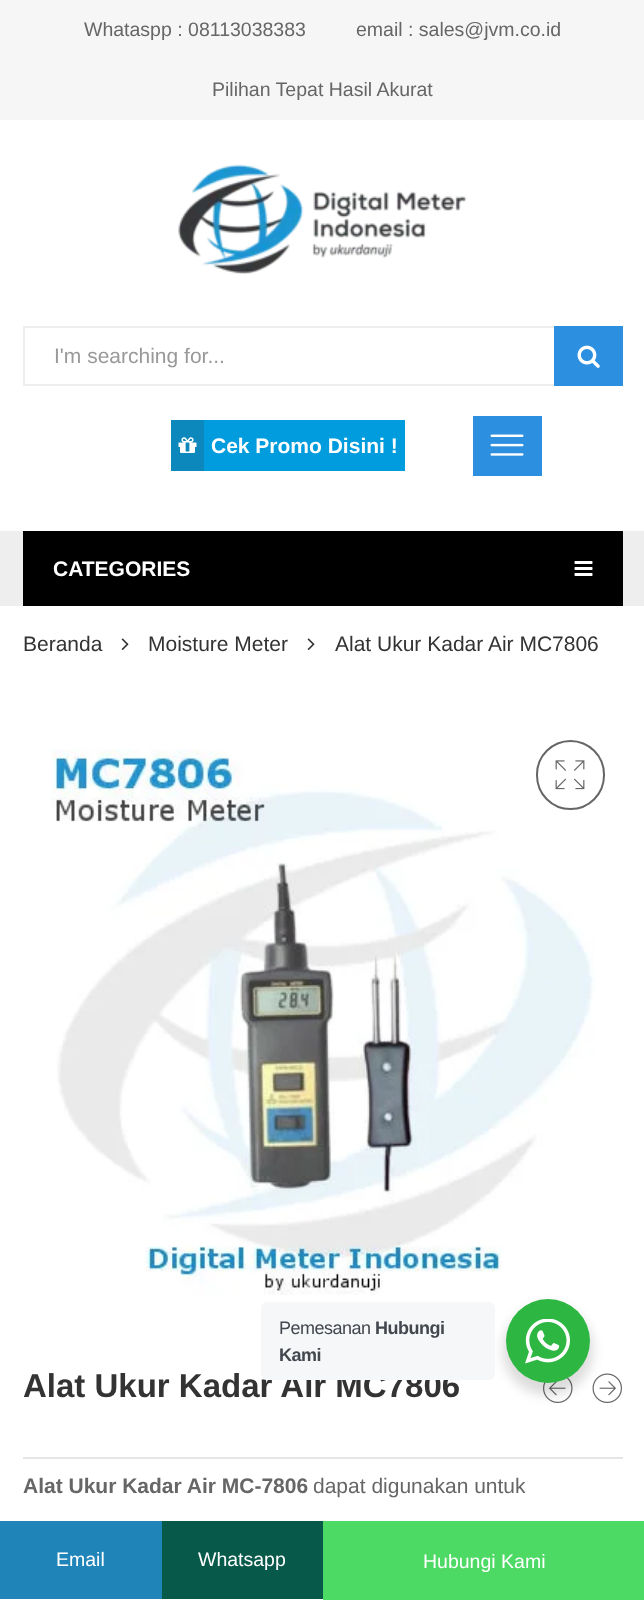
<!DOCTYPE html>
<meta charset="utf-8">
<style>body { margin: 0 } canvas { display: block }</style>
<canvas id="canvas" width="644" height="1600"></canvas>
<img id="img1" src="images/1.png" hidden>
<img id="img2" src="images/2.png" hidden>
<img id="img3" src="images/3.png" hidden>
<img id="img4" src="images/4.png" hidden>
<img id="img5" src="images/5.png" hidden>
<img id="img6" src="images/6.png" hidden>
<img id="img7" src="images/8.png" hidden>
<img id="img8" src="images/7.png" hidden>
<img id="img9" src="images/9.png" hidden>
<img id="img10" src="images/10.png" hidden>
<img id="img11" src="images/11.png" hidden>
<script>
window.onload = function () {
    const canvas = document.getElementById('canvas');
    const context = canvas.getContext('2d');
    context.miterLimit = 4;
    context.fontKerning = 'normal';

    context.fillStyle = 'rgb(255, 255, 255)';
    context.fillRect(0, 0, 644, 1600);
    context.fillStyle = 'rgb(246, 246, 246)';
    context.fillRect(0, 0, 644, 120);
    context.drawImage(document.getElementById('img1'), 178, 164, 289, 111);
    context.strokeStyle = 'rgb(238, 238, 238)';
    context.lineWidth = 2;
    context.strokeRect(24, 327, 598, 58);
    context.fillStyle = 'rgb(44, 143, 224)';
    context.fillRect(554, 326, 69, 60);
    context.drawImage(document.getElementById('img2'), 577, 345, 23, 23);
    context.fillStyle = 'rgb(1, 156, 222)';
    context.fillRect(204, 420, 201, 51);
    context.fillStyle = 'rgb(13, 136, 188)';
    context.fillRect(171, 420, 33, 51);
    context.drawImage(document.getElementById('img3'), 178, 437, 19, 16);
    context.fillStyle = 'rgb(44, 143, 224)';
    context.fillRect(473, 416, 69, 60);
    context.drawImage(document.getElementById('img4'), 490, 434, 34, 22);
    context.fillStyle = 'rgb(238, 238, 238)';
    context.fillRect(0, 531, 644, 75);
    context.fillStyle = 'rgb(0, 0, 0)';
    context.fillRect(23, 531, 600, 75);
    context.drawImage(document.getElementById('img5'), 574, 561, 19, 15);
    context.drawImage(document.getElementById('img6'), 121, 638, 8, 12);
    context.drawImage(document.getElementById('img6'), 307, 638, 8, 12);
    context.drawImage(document.getElementById('img7'), 51, 749, 544, 546);
    context.beginPath();
    context.roundRect(537, 741, 67, 68, 33.5);
    context.strokeStyle = 'rgb(102, 102, 102)';
    context.stroke();
    context.drawImage(document.getElementById('img8'), 555, 760, 30, 30);
    context.drawImage(document.getElementById('img9'), 543, 1377, 30, 26);
    context.drawImage(document.getElementById('img10'), 592, 1373, 30, 30);
    context.fillStyle = 'rgb(229, 229, 229)';
    context.fillRect(23, 1457, 600, 2);
    context.fillStyle = 'rgba(0, 0, 0, 0.14)';
    context.filter = 'blur(6px)';
    context.beginPath();
    context.roundRect(503, 1305, 90, 90, 45);
    context.fill();
    context.filter = 'none';
    context.fillStyle = 'rgb(45, 183, 66)';
    context.beginPath();
    context.arc(548, 1341, 42, 0, 2 * Math.PI);
    context.fill();
    context.drawImage(document.getElementById('img11'), 525, 1319, 45, 45);
    context.fillStyle = 'rgb(31, 132, 184)';
    context.fillRect(0, 1521, 162, 78);
    context.fillStyle = 'rgb(7, 89, 74)';
    context.fillRect(162, 1521, 161, 78);
    context.fillStyle = 'rgb(76, 218, 100)';
    context.fillRect(323, 1521, 321, 79);
    context.font = '19.5px Liberation Sans';
    context.fillStyle = 'rgb(102, 102, 102)';
    context.fillText('Whataspp : 08113038383', 84, 36);
    context.fillText('email : sales@jvm.co.id', 356, 36);
    context.fillText('Pilihan Tepat Hasil Akurat', 212, 96);
    context.font = '21px Liberation Sans';
    context.fillStyle = 'rgb(153, 153, 153)';
    context.fillText('I\'m searching for...', 54, 363);
    context.font = 'bold 21px Liberation Sans';
    context.fillStyle = 'rgb(255, 255, 255)';
    context.fillText('Cek Promo Disini !', 211, 453);
    context.fillText('CATEGORIES', 53, 576);
    context.font = '21px Liberation Sans';
    context.fillStyle = 'rgb(51, 51, 51)';
    context.fillText('Beranda', 23, 651);
    context.fillText('Moisture Meter', 148, 651);
    context.fillText('Alat Ukur Kadar Air MC7806', 335, 651);
    context.font = 'bold 33px Liberation Sans';
    context.fillText('Alat Ukur Kadar Air MC7806', 23, 1397);
    context.font = 'bold 21px Liberation Sans';
    context.fillStyle = 'rgb(102, 102, 102)';
    context.fillText('Alat Ukur Kadar Air MC-7806', 23, 1493);
    context.font = '21px Liberation Sans';
    context.fillText('dapat digunakan untuk', 313, 1493);
    context.fillStyle = 'rgb(245, 247, 249)';
    context.beginPath();
    context.roundRect(261, 1302, 234, 78, 6);
    context.fill();
    context.letterSpacing = '-0.5px';
    context.font = '18px Liberation Sans';
    context.fillStyle = 'rgb(67, 71, 78)';
    context.fillText('Pemesanan', 279, 1334);
    context.font = 'bold 18px Liberation Sans';
    context.fillText('Hubungi', 375, 1334);
    context.fillText('Kami', 279, 1361);
    context.letterSpacing = '0px';
    context.font = '19.5px Liberation Sans';
    context.fillStyle = 'rgb(255, 255, 255)';
    context.fillText('Email', 56, 1566);
    context.fillText('Whatsapp', 198, 1566);
    context.fillText('Hubungi Kami', 423, 1568);
};
</script>
